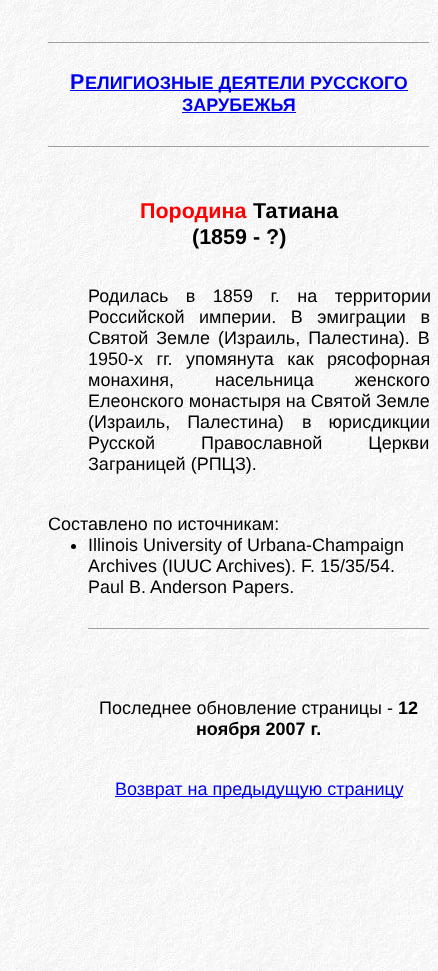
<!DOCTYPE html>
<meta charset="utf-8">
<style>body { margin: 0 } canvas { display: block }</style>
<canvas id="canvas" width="438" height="971"></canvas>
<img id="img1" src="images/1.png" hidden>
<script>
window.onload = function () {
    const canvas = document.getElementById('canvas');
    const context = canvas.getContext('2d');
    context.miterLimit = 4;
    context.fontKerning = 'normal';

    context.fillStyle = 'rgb(255, 255, 255)';
    context.fillRect(0, 0, 438, 971);
    context.drawImage(document.getElementById('img1'), 0, 0, 438, 971);
    context.fillStyle = 'rgb(159, 159, 159)';
    context.fillRect(48, 42, 382, 1);
    context.fillStyle = 'rgb(238, 238, 238)';
    context.fillRect(429, 42, 1, 1);
    context.fillStyle = 'rgb(0, 0, 238)';
    context.fillRect(70, 90, 338, 1);
    context.fillRect(182, 112, 114, 1);
    context.fillStyle = 'rgb(159, 159, 159)';
    context.fillRect(48, 146, 382, 1);
    context.fillStyle = 'rgb(238, 238, 238)';
    context.fillRect(429, 146, 1, 1);
    context.fillStyle = 'rgb(0, 0, 0)';
    context.beginPath();
    context.arc(73.5, 546.5, 2.5, 0, 2 * Math.PI);
    context.fill();
    context.fillStyle = 'rgb(159, 159, 159)';
    context.fillRect(88, 628, 342, 1);
    context.fillStyle = 'rgb(238, 238, 238)';
    context.fillRect(429, 628, 1, 1);
    context.fillStyle = 'rgb(0, 0, 238)';
    context.fillRect(115, 796, 288, 1);
    context.font = 'bold 21.5px Liberation Sans';
    context.fillText('Р', 70, 89);
    context.font = 'bold 18px Liberation Sans';
    context.fillText('ЕЛИГИОЗНЫЕ ДЕЯТЕЛИ РУССКОГО', 85, 89);
    context.fillText('ЗАРУБЕЖЬЯ', 182, 111);
    context.font = 'bold 21.5px Liberation Sans';
    context.fillStyle = 'rgb(255, 0, 0)';
    context.fillText('Породина', 140, 218);
    context.fillStyle = 'rgb(0, 0, 0)';
    context.fillText('Татиана', 253, 218);
    context.fillText('(1859 - ?)', 192, 244);
    context.wordSpacing = '12.5px';
    context.font = '18px Liberation Sans';
    context.fillText('Родилась в 1859 г. на территории', 88, 302);
    context.wordSpacing = '9.5px';
    context.fillText('Российской империи. В эмиграции в', 88, 323);
    context.wordSpacing = '3px';
    context.fillText('Святой Земле (Израиль, Палестина). В', 88, 344);
    context.wordSpacing = '8.5px';
    context.fillText('1950-х гг. упомянута как рясофорная', 88, 365);
    context.wordSpacing = '36px';
    context.fillText('монахиня, насельница женского', 88, 386);
    context.wordSpacing = '0px';
    context.fillText('Елеонского монастыря на Святой Земле', 88, 407);
    context.wordSpacing = '12px';
    context.fillText('(Израиль, Палестина)', 88, 428);
    context.fillText('в юрисдикции', 302, 428);
    context.wordSpacing = '41px';
    context.fillText('Русской Православной Церкви', 88, 449);
    context.wordSpacing = '0px';
    context.fillText('Заграницей (РПЦЗ).', 88, 470);
    context.fillText('Составлено по источникам:', 48, 530);
    context.fillText('Illinois University of Urbana-Champaign', 88, 551);
    context.fillText('Archives (IUUC Archives). F. 15/35/54.', 88, 572);
    context.fillText('Paul B. Anderson Papers.', 88, 593);
    context.fillText('Последнее обновление страницы -', 99, 714);
    context.font = 'bold 18px Liberation Sans';
    context.fillText('12', 398, 714);
    context.fillText('ноября 2007 г.', 196, 735);
    context.font = '18px Liberation Sans';
    context.fillStyle = 'rgb(0, 0, 238)';
    context.fillText('Возврат на предыдущую страницу', 115, 795);
};
</script>
